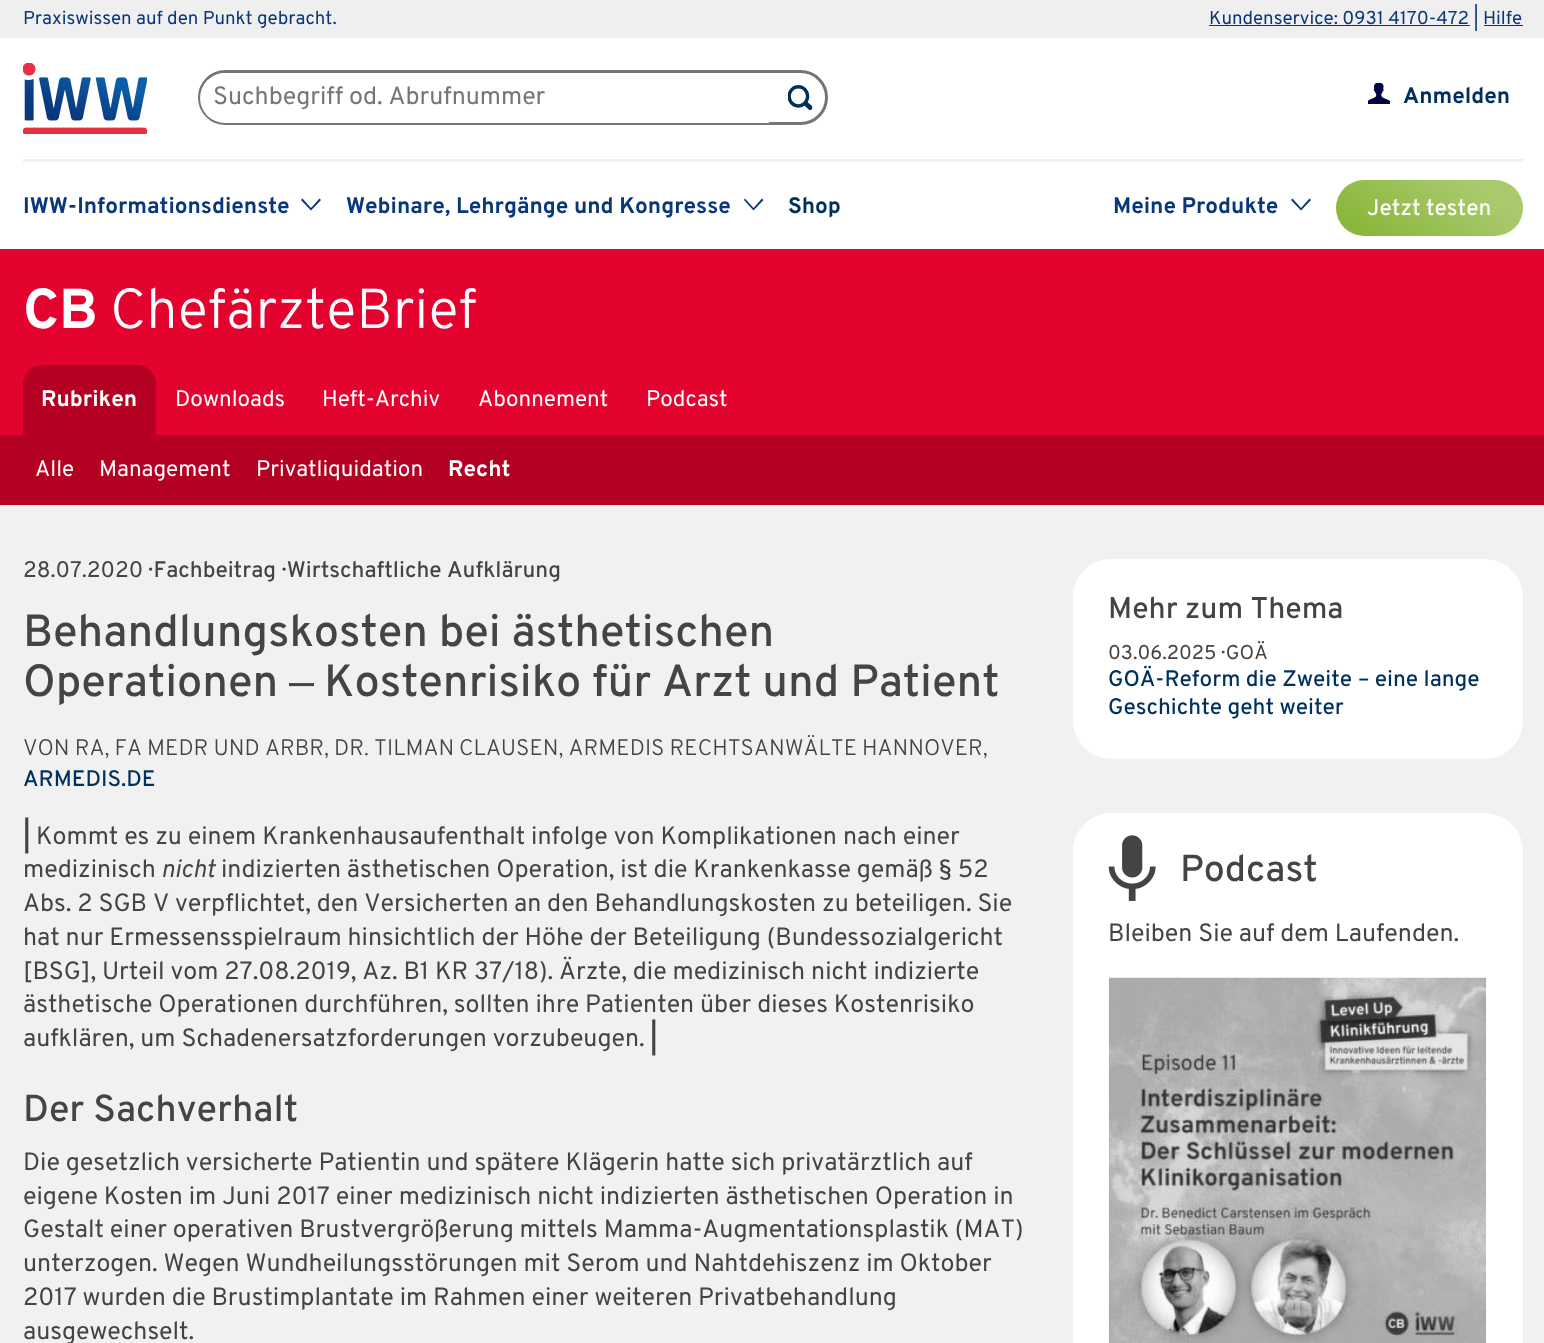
<!DOCTYPE html>
<meta charset="utf-8">
<style>body { margin: 0 } canvas { display: block }</style>
<canvas id="canvas" width="1544" height="1343"></canvas>
<img id="img1" src="images/1.png" hidden>
<img id="img2" src="images/2.png" hidden>
<img id="img3" src="images/3.png" hidden>
<img id="img4" src="images/4.png" hidden>
<img id="img5" src="images/5.png" hidden>
<script>
window.onload = function () {
    const canvas = document.getElementById('canvas');
    const context = canvas.getContext('2d');
    context.miterLimit = 4;
    context.fontKerning = 'none';
    let gradient;

    context.fillStyle = 'rgb(255, 255, 255)';
    context.fillRect(0, 0, 1544, 1343);
    context.fillStyle = 'rgb(239, 239, 239)';
    context.fillRect(0, 0, 1544, 38);
    context.fillStyle = 'rgb(10, 54, 122)';
    context.fillRect(1209, 25, 261, 1);
    context.fillRect(1484, 25, 39, 1);
    context.fillStyle = 'rgb(239, 239, 239)';
    context.fillRect(23, 159, 1500, 3);
    context.drawImage(document.getElementById('img1'), 23, 63, 124, 71);
    context.beginPath();
    context.roundRect(199.5, 71.5, 627, 52, 26);
    context.strokeStyle = 'rgb(117, 117, 117)';
    context.lineWidth = 3;
    context.stroke();
    context.fillStyle = 'rgb(255, 255, 255)';
    context.beginPath();
    context.roundRect(200, 73, 569, 50, [25, 0, 0, 25]);
    context.fill();
    context.drawImage(document.getElementById('img2'), 788, 85, 25, 25);
    context.drawImage(document.getElementById('img3'), 1368, 83, 22, 21);
    context.fillStyle = 'rgb(10, 54, 122)';
    context.beginPath();
    context.moveTo(319.5, 198.5);
    context.lineTo(321, 200);
    context.lineTo(311, 210.5);
    context.lineTo(301, 200);
    context.lineTo(302.5, 198.5);
    context.lineTo(311, 208);
    context.closePath();
    context.fill();
    context.beginPath();
    context.moveTo(762, 198.5);
    context.lineTo(763.5, 200);
    context.lineTo(753.5, 210.5);
    context.lineTo(744, 200);
    context.lineTo(745, 198.5);
    context.lineTo(753.5, 208);
    context.closePath();
    context.fill();
    context.beginPath();
    context.moveTo(1309.5, 198.5);
    context.lineTo(1311, 200);
    context.lineTo(1301, 210.5);
    context.lineTo(1291, 200);
    context.lineTo(1292.5, 198.5);
    context.lineTo(1301, 208);
    context.closePath();
    context.fill();
    gradient = context.createLinearGradient(1475, 145, 1384, 271);
    gradient.addColorStop(0.24, 'rgb(168, 201, 108)');
    gradient.addColorStop(0.87, 'rgb(139, 183, 60)');
    context.fillStyle = gradient;
    context.beginPath();
    context.roundRect(1336, 180, 187, 56, 28);
    context.fill();
    context.fillStyle = 'rgb(228, 3, 46)';
    context.fillRect(0, 249, 1544, 186);
    context.fillStyle = 'rgb(180, 0, 34)';
    context.beginPath();
    context.roundRect(23, 365, 133, 70, [19, 19, 0, 0]);
    context.fill();
    context.fillRect(0, 435, 1544, 70);
    context.fillStyle = 'rgb(241, 241, 241)';
    context.fillRect(0, 505, 1544, 838);
    context.fillStyle = 'rgb(255, 255, 255)';
    context.beginPath();
    context.roundRect(1073, 559, 450, 200, 38);
    context.fill();
    context.beginPath();
    context.roundRect(1073, 813, 450, 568, 38);
    context.fill();
    context.drawImage(document.getElementById('img4'), 1108, 835, 48, 66);
    context.drawImage(document.getElementById('img5'), 1108, 977, 379, 366);
    context.font = '18.75px Overpass';
    context.fillStyle = 'rgb(10, 54, 122)';
    context.fillText('Praxiswissen auf den Punkt gebracht.', 23, 24);
    context.fillText('Kundenservice: 0931 4170-472 | Hilfe', 1209, 24);
    context.font = '25px Overpass';
    context.fillStyle = 'rgb(117, 117, 117)';
    context.fillText('Suchbegriff od. Abrufnummer', 213, 104);
    context.font = 'bold 22.5px Overpass';
    context.fillStyle = 'rgb(0, 48, 94)';
    context.fillText('Anmelden', 1403, 103);
    context.fillStyle = 'rgb(10, 54, 122)';
    context.fillText('IWW-Informationsdienste', 23, 213);
    context.fillText('Webinare, Lehrgänge und Kongresse', 346, 213);
    context.fillStyle = 'rgb(0, 48, 94)';
    context.fillText('Shop', 788, 213);
    context.fillStyle = 'rgb(10, 54, 122)';
    context.fillText('Meine Produkte', 1113, 213);
    context.font = '500 22.5px Overpass';
    context.fillStyle = 'rgb(255, 255, 255)';
    context.fillText('Jetzt testen', 1367, 215);
    context.font = 'bold 56.25px Overpass';
    context.fillText('CB', 23, 328);
    context.font = '300 56.25px Overpass';
    context.fillText('ChefärzteBrief', 110, 328);
    context.font = 'bold 22.5px Overpass';
    context.fillText('Rubriken', 41, 406);
    context.font = '22.5px Overpass';
    context.fillText('Downloads', 175, 406);
    context.fillText('Heft-Archiv', 322, 406);
    context.fillText('Abonnement', 478, 406);
    context.fillText('Podcast', 646, 406);
    context.fillText('Alle', 35, 476);
    context.fillText('Management', 99, 476);
    context.fillText('Privatliquidation', 256, 476);
    context.font = 'bold 22.5px Overpass';
    context.fillText('Recht', 448, 476);
    context.font = '22.5px Overpass';
    context.fillStyle = 'rgb(68, 68, 68)';
    context.fillText('28.07.2020', 23, 577);
    context.font = '500 22.5px Overpass';
    context.fillText('· Fachbeitrag · Wirtschaftliche Aufklärung', 148, 577);
    context.font = '500 45px Overpass';
    context.fillText('Behandlungskosten bei ästhetischen', 23, 646);
    context.fillText('Operationen', 23, 696);
    context.font = '45px Liberation Sans';
    context.fillText('‒', 289, 696);
    context.font = '500 45px Overpass';
    context.fillText('Kostenrisiko für Arzt und Patient', 324, 696);
    context.font = '300 22.5px Overpass';
    context.fillText('VON RA, FA', 23, 755);
    context.fillText('MEDR UND ARBR, DR. TILMAN', 147, 755);
    context.fillText('CLAUSEN, ARMEDIS RECHTSANWÄLTE', 459, 755);
    context.fillText('HANNOVER,', 862, 755);
    context.font = '500 22.5px Overpass';
    context.fillStyle = 'rgb(0, 48, 94)';
    context.fillText('ARMEDIS.DE', 23, 786);
    context.font = 'bold 25px Overpass';
    context.fillStyle = 'rgb(68, 68, 68)';
    context.fillText('|', 23, 844);
    context.font = '25px Overpass';
    context.fillText('Kommt es zu einem Krankenhausaufenthalt infolge von Komplikationen', 36, 844);
    context.fillText('nach einer', 843, 844);
    context.fillText('medizinisch', 23, 877);
    context.font = 'italic 25px Overpass';
    context.fillText('nicht', 161, 877);
    context.font = '25px Overpass';
    context.fillText('indizierten ästhetischen Operation, ist die Krankenkasse gemäß § 52', 221, 877);
    context.fillText('Abs. 2 SGB V verpflichtet, den Versicherten', 23, 911);
    context.fillText('an den Behandlungskosten zu beteiligen. Sie', 514, 911);
    context.fillText('hat nur Ermessensspielraum hinsichtlich der Höhe der Beteiligung (Bundessozialgericht', 23, 945);
    context.fillText('[BSG], Urteil vom 27.08.2019, Az. B1 KR 37/18).', 23, 979);
    context.fillText('Ärzte, die medizinisch nicht indizierte', 559, 979);
    context.fillText('ästhetische Operationen durchführen, sollten ihre Patienten über dieses Kostenrisiko', 23, 1012);
    context.fillText('aufklären, um Schadenersatzforderungen vorzubeugen.', 23, 1046);
    context.font = 'bold 25px Overpass';
    context.fillText('|', 650, 1046);
    context.font = '500 37.5px Overpass';
    context.fillText('Der Sachverhalt', 23, 1121);
    context.font = '25px Overpass';
    context.fillText('Die gesetzlich versicherte Patientin und spätere Klägerin hatte sich privatärztlich', 23, 1170);
    context.fillText('auf', 937, 1170);
    context.fillText('eigene Kosten im Juni 2017 einer medizinisch nicht indizierten ästhetischen Operation in', 23, 1204);
    context.fillText('Gestalt einer operativen Brustvergrößerung mittels Mamma-Augmentationsplastik (MAT)', 23, 1237);
    context.fillText('unterzogen. Wegen Wundheilungsstörungen mit Serom und Nahtdehiszenz im Oktober', 23, 1271);
    context.fillText('2017 wurden die Brustimplantate im Rahmen einer weiteren Privatbehandlung', 23, 1305);
    context.fillText('ausgewechselt.', 23, 1339);
    context.font = '500 30px Overpass';
    context.fillText('Mehr zum Thema', 1108, 618);
    context.font = '20px Overpass';
    context.fillText('03.06.2025 · GOÄ', 1108, 659);
    context.font = '500 22.5px Overpass';
    context.fillStyle = 'rgb(0, 48, 94)';
    context.fillText('GOÄ-Reform die Zweite', 1108, 686);
    context.fillText('– eine lange', 1358, 686);
    context.fillText('Geschichte geht weiter', 1108, 714);
    context.font = '500 37.5px Overpass';
    context.fillStyle = 'rgb(68, 68, 68)';
    context.fillText('Podcast', 1180, 881);
    context.font = '25px Overpass';
    context.fillText('Bleiben Sie auf dem Laufenden.', 1108, 941);
};
</script>
